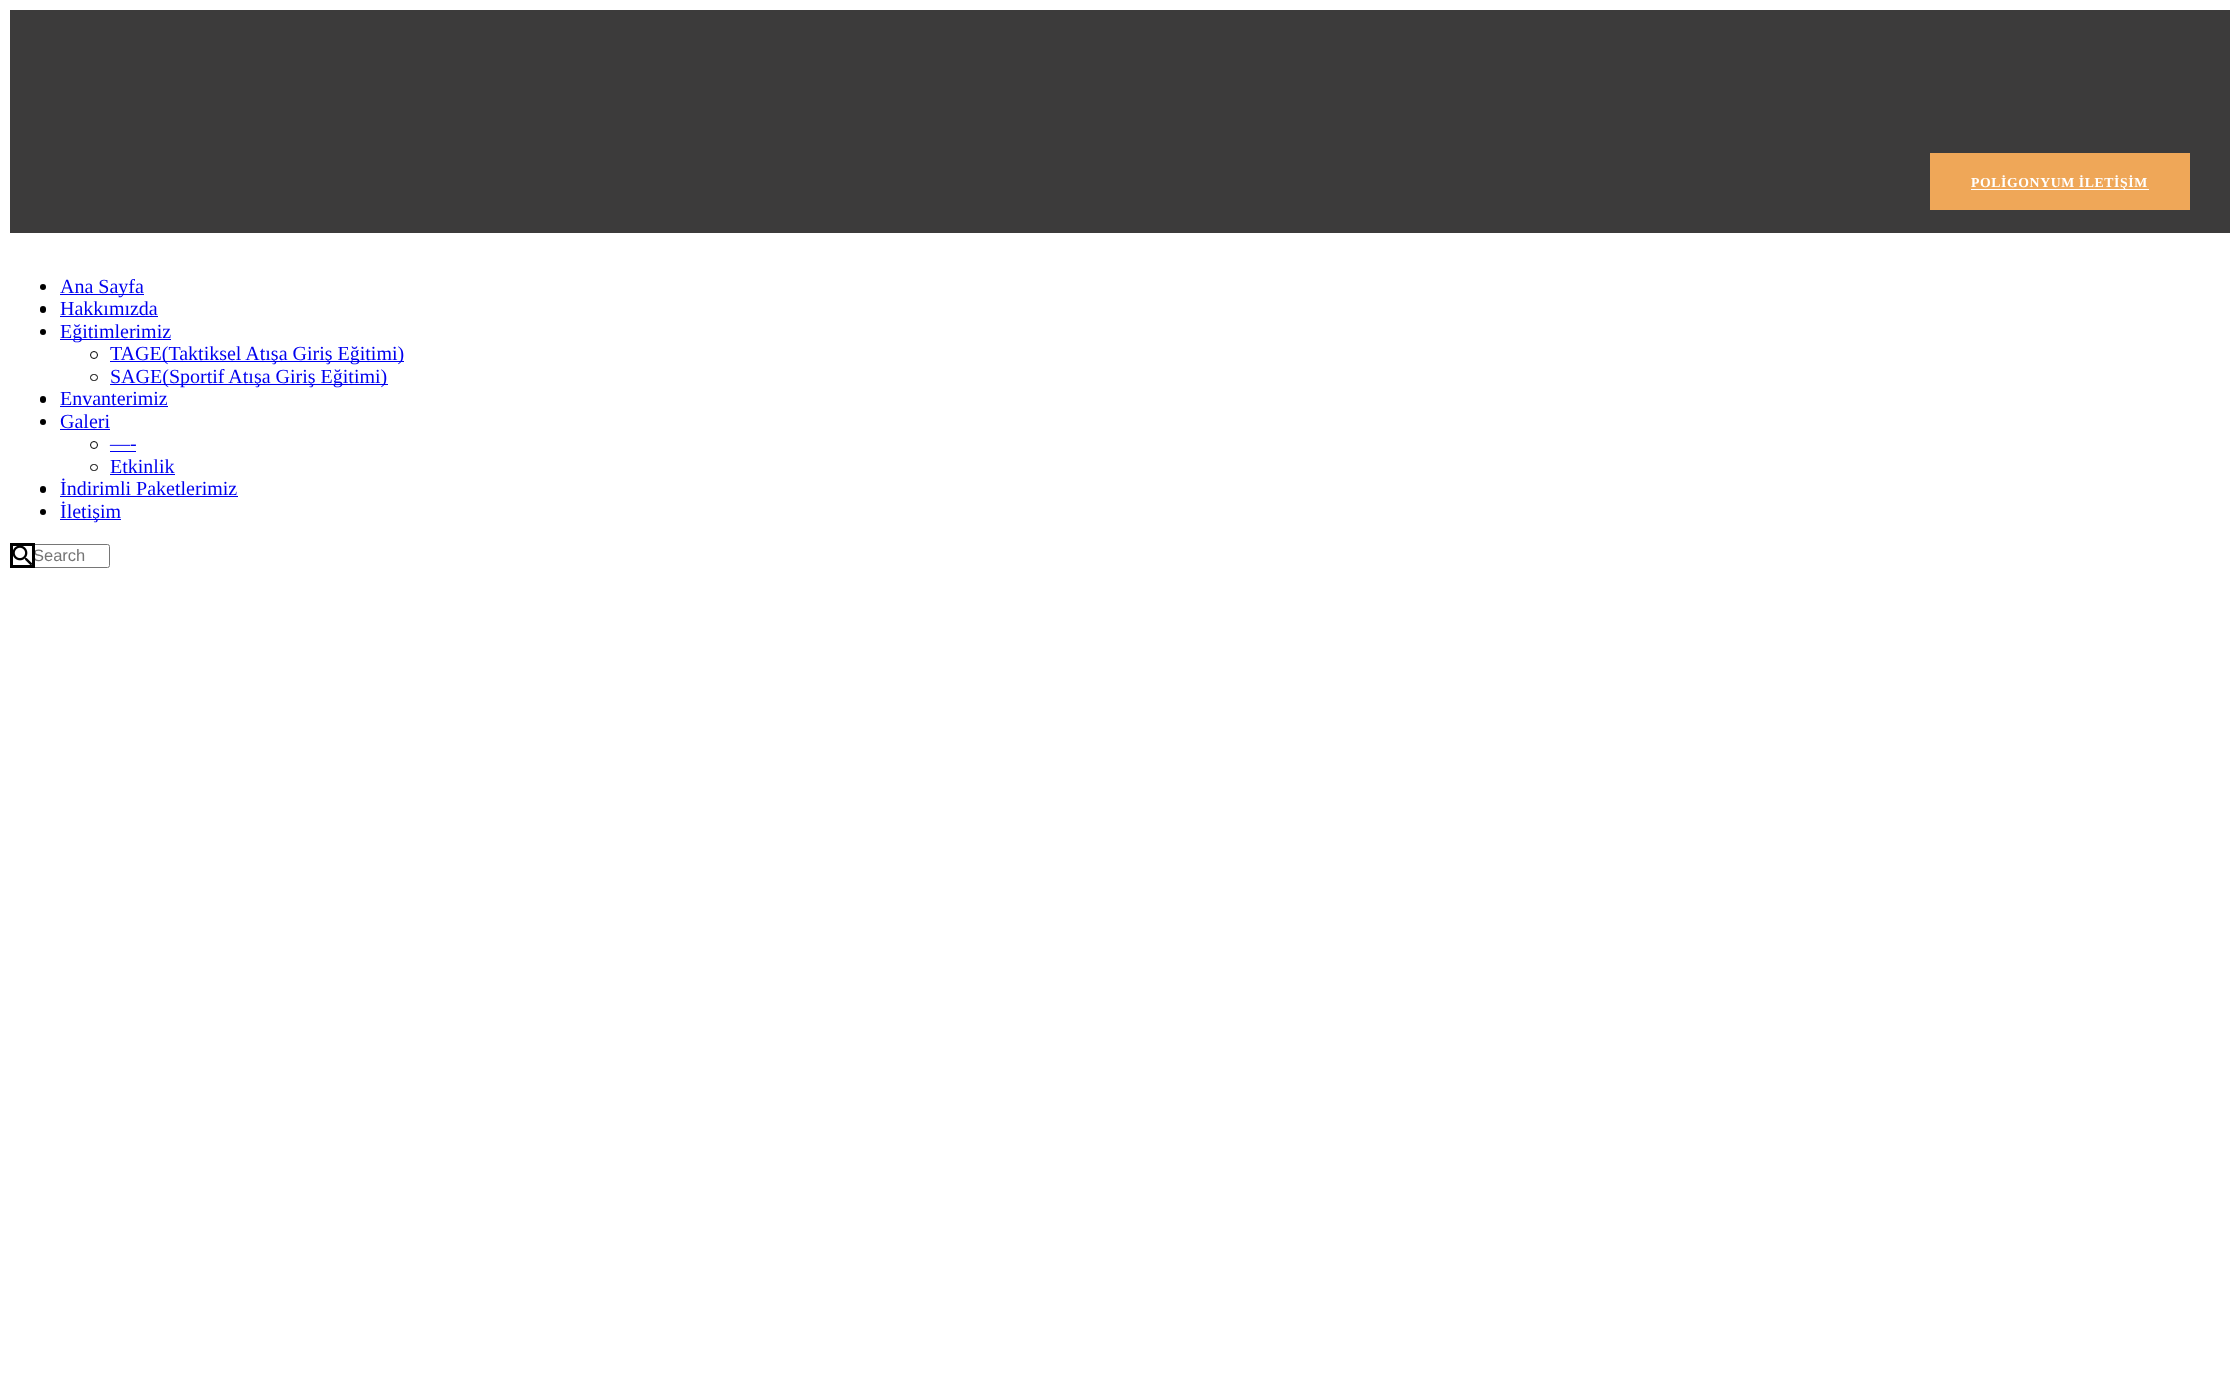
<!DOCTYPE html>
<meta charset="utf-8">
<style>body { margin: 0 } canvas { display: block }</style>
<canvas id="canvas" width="2240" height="1391"></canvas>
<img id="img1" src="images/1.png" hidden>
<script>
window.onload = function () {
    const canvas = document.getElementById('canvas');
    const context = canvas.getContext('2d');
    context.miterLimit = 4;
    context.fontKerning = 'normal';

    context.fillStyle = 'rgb(255, 255, 255)';
    context.fillRect(0, 0, 2240, 1391);
    context.fillStyle = 'rgb(60, 59, 59)';
    context.fillRect(10, 10, 2220, 223);
    context.fillStyle = 'rgb(239, 167, 88)';
    context.fillRect(1930, 153, 260, 57);
    context.fillStyle = 'rgb(255, 255, 255)';
    context.fillRect(1971, 189, 178, 1);
    context.fillStyle = 'rgb(0, 0, 0)';
    context.beginPath();
    context.arc(43, 287, 3, 0, 2 * Math.PI);
    context.fill();
    context.fillStyle = 'rgb(0, 0, 238)';
    context.fillRect(60, 294, 84, 1);
    context.fillStyle = 'rgb(0, 0, 0)';
    context.beginPath();
    context.roundRect(40, 306, 6, 7, 3);
    context.fill();
    context.fillStyle = 'rgb(0, 0, 238)';
    context.fillRect(60, 316, 98, 1);
    context.fillStyle = 'rgb(0, 0, 0)';
    context.beginPath();
    context.arc(43, 332, 3, 0, 2 * Math.PI);
    context.fill();
    context.fillStyle = 'rgb(0, 0, 238)';
    context.fillRect(60, 339, 111, 1);
    context.beginPath();
    context.arc(94, 355, 3.5, 0, 2 * Math.PI);
    context.strokeStyle = 'rgb(0, 0, 0)';
    context.stroke();
    context.fillRect(110, 361, 294, 1);
    context.beginPath();
    context.roundRect(90.5, 374.5, 7, 6, 3);
    context.stroke();
    context.fillRect(110, 384, 278, 1);
    context.fillStyle = 'rgb(0, 0, 0)';
    context.beginPath();
    context.roundRect(40, 396, 6, 7, 3);
    context.fill();
    context.fillStyle = 'rgb(0, 0, 238)';
    context.fillRect(60, 406, 108, 1);
    context.fillStyle = 'rgb(0, 0, 0)';
    context.beginPath();
    context.arc(43, 422, 3, 0, 2 * Math.PI);
    context.fill();
    context.fillStyle = 'rgb(0, 0, 238)';
    context.fillRect(60, 429, 50, 1);
    context.beginPath();
    context.arc(94, 445, 3.5, 0, 2 * Math.PI);
    context.stroke();
    context.fillRect(110, 451, 26, 1);
    context.beginPath();
    context.roundRect(90.5, 464.5, 7, 6, 3);
    context.stroke();
    context.fillRect(110, 474, 65, 1);
    context.fillStyle = 'rgb(0, 0, 0)';
    context.beginPath();
    context.roundRect(40, 486, 6, 7, 3);
    context.fill();
    context.fillStyle = 'rgb(0, 0, 238)';
    context.fillRect(60, 496, 178, 1);
    context.fillStyle = 'rgb(0, 0, 0)';
    context.beginPath();
    context.arc(43, 512, 3, 0, 2 * Math.PI);
    context.fill();
    context.fillStyle = 'rgb(0, 0, 238)';
    context.fillRect(60, 519, 61, 1);
    context.beginPath();
    context.roundRect(10.5, 544.5, 99, 23, 2);
    context.strokeStyle = 'rgb(118, 118, 118)';
    context.stroke();
    context.letterSpacing = '0.6px';
    context.font = 'bold 13.75px Liberation Serif';
    context.fillStyle = 'rgb(255, 255, 255)';
    context.fillText('POLİGONYUM İLETİŞİM', 1971, 187);
    context.letterSpacing = '0px';
    context.font = '20px Liberation Serif';
    context.fillStyle = 'rgb(0, 0, 238)';
    context.fillText('Ana Sayfa', 60, 293);
    context.fillText('Hakkımızda', 60, 315);
    context.fillText('Eğitimlerimiz', 60, 338);
    context.fillText('TAGE(Taktiksel Atışa Giriş Eğitimi)', 110, 360);
    context.fillText('SAGE(Sportif Atışa Giriş Eğitimi)', 110, 383);
    context.fillText('Envanterimiz', 60, 405);
    context.fillText('Galeri', 60, 428);
    context.fillText('—-', 110, 450);
    context.fillText('Etkinlik', 110, 473);
    context.fillText('İndirimli Paketlerimiz', 60, 495);
    context.fillText('İletişim', 60, 518);
    context.font = '16.5px Liberation Sans';
    context.fillStyle = 'rgb(117, 117, 117)';
    context.fillText('Search', 33, 561);
    context.strokeStyle = 'rgb(0, 0, 0)';
    context.lineWidth = 3;
    context.strokeRect(11.5, 544.5, 22, 22);
    context.drawImage(document.getElementById('img1'), 13, 546, 19, 19);
};
</script>
